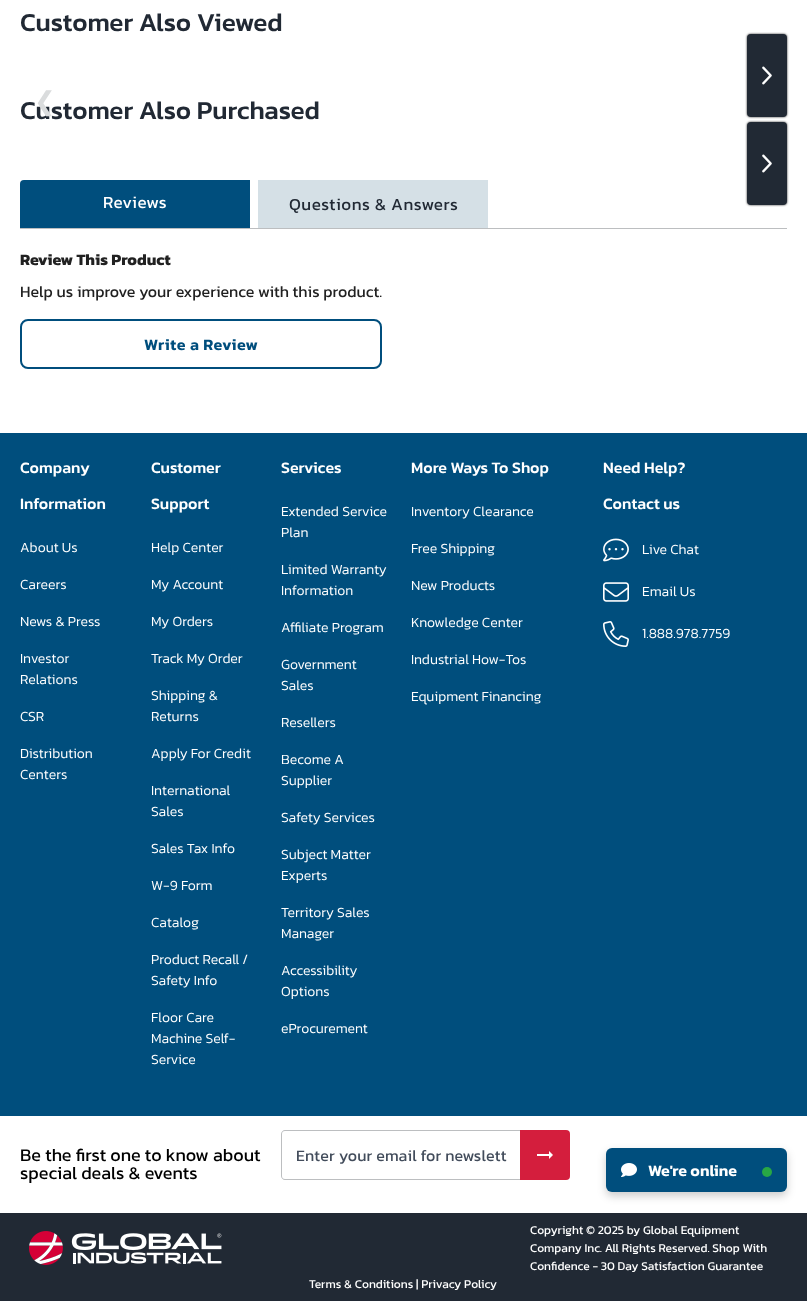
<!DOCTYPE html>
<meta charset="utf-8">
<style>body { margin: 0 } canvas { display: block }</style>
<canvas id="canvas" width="807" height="1302"></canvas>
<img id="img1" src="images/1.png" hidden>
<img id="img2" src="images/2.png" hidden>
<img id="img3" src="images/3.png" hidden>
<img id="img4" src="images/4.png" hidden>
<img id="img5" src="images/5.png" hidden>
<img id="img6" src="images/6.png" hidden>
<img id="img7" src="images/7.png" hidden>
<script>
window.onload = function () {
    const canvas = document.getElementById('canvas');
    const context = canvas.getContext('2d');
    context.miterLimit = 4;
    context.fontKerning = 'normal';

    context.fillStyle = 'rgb(255, 255, 255)';
    context.fillRect(0, 0, 807, 1302);
    context.fillStyle = 'rgb(51, 51, 51)';
    context.filter = 'blur(1px)';
    context.beginPath();
    context.roundRect(747, 34, 40, 83, 4);
    context.fill();
    context.filter = 'none';
    context.fillStyle = 'rgb(33, 41, 52)';
    context.beginPath();
    context.roundRect(747, 34, 40, 83, 4);
    context.fill();
    context.drawImage(document.getElementById('img1'), 762, 66, 10, 19);
    context.fillStyle = 'rgb(51, 51, 51)';
    context.filter = 'blur(1px)';
    context.beginPath();
    context.roundRect(747, 122, 40, 83, 4);
    context.fill();
    context.filter = 'none';
    context.fillStyle = 'rgb(33, 41, 52)';
    context.beginPath();
    context.roundRect(747, 122, 40, 83, 4);
    context.fill();
    context.drawImage(document.getElementById('img1'), 762, 154, 10, 19);
    context.fillStyle = 'rgb(188, 190, 192)';
    context.fillRect(20, 228, 767, 1);
    context.fillStyle = 'rgb(0, 78, 125)';
    context.beginPath();
    context.roundRect(20, 180, 230, 48, [4, 0, 0, 0]);
    context.fill();
    context.fillStyle = 'rgb(213, 224, 230)';
    context.fillRect(258, 180, 230, 48);
    context.beginPath();
    context.roundRect(21, 320, 360, 48, 7);
    context.strokeStyle = 'rgb(0, 78, 125)';
    context.lineWidth = 2;
    context.stroke();
    context.fillStyle = 'rgb(0, 78, 125)';
    context.fillRect(0, 433, 807, 683);
    context.drawImage(document.getElementById('img2'), 603, 538, 26, 24);
    context.drawImage(document.getElementById('img3'), 603, 582, 26, 20);
    context.drawImage(document.getElementById('img4'), 603, 621, 26, 26);
    context.fillStyle = 'rgb(188, 190, 192)';
    context.beginPath();
    context.moveTo(285, 1130);
    context.lineTo(520, 1130);
    context.bezierCurveTo(522, 1130, 524, 1132, 524, 1134);
    context.lineTo(524, 1176);
    context.bezierCurveTo(524, 1178, 522, 1180, 520, 1180);
    context.lineTo(285, 1180);
    context.bezierCurveTo(283, 1180, 281, 1178, 281, 1176);
    context.lineTo(281, 1134);
    context.bezierCurveTo(281, 1132, 283, 1130, 285, 1130);
    context.closePath();
    context.moveTo(285, 1131);
    context.lineTo(520, 1131);
    context.bezierCurveTo(522, 1131, 524, 1132, 524, 1134);
    context.lineTo(524, 1176);
    context.bezierCurveTo(524, 1178, 522, 1179, 520, 1179);
    context.lineTo(285, 1179);
    context.bezierCurveTo(283, 1179, 282, 1178, 282, 1176);
    context.lineTo(282, 1134);
    context.bezierCurveTo(282, 1132, 283, 1131, 285, 1131);
    context.closePath();
    context.fill('evenodd');
    context.fillStyle = 'rgb(212, 30, 61)';
    context.beginPath();
    context.roundRect(520, 1130, 50, 50, [0, 4, 4, 0]);
    context.fill();
    context.drawImage(document.getElementById('img5'), 537, 1151, 16, 8);
    context.fillStyle = 'rgb(33, 41, 52)';
    context.fillRect(0, 1213, 807, 88);
    context.drawImage(document.getElementById('img6'), 29, 1231, 193, 34);
    context.fillStyle = 'rgba(0, 0, 0, 0.2)';
    context.filter = 'blur(4px)';
    context.beginPath();
    context.roundRect(606, 1152, 181, 44, 6);
    context.fill();
    context.filter = 'none';
    context.fillStyle = 'rgb(0, 78, 125)';
    context.beginPath();
    context.roundRect(606, 1148, 181, 44, 6);
    context.fill();
    context.drawImage(document.getElementById('img7'), 621, 1163, 16, 14);
    context.fillStyle = 'rgb(40, 167, 69)';
    context.beginPath();
    context.arc(767, 1172, 5, 0, 2 * Math.PI);
    context.fill();
    context.font = '500 26px Kanit';
    context.fillStyle = 'rgb(33, 41, 52)';
    context.fillText('Customer Also Viewed', 20, 31);
    context.fillText('Customer Also Purchased', 20, 119);
    context.font = '26px DejaVu Sans';
    context.fillStyle = 'rgb(218, 220, 221)';
    context.fillText('❮', 34, 110);
    context.letterSpacing = '0.5px';
    context.font = '17px Kanit';
    context.fillStyle = 'rgb(255, 255, 255)';
    context.fillText('Reviews', 103, 208);
    context.fillStyle = 'rgb(33, 41, 52)';
    context.fillText('Questions & Answers', 289, 210);
    context.letterSpacing = '0px';
    context.font = 'bold 16px Kanit';
    context.fillStyle = 'rgb(33, 33, 33)';
    context.fillText('Review This Product', 20, 265);
    context.font = '16px Kanit';
    context.fillText('Help us improve your experience with this product.', 20, 297);
    context.letterSpacing = '0.5px';
    context.font = '600 16px Kanit';
    context.fillStyle = 'rgb(0, 78, 125)';
    context.fillText('Write a Review', 144, 350);
    context.letterSpacing = '0px';
    context.font = '500 16px Kanit';
    context.fillStyle = 'rgb(255, 255, 255)';
    context.fillText('Company', 20, 473);
    context.fillText('Information', 20, 509);
    context.font = '300 14px Kanit';
    context.fillText('About Us', 20, 552);
    context.fillText('Careers', 20, 589);
    context.fillText('News & Press', 20, 626);
    context.fillText('Investor', 20, 663);
    context.fillText('Relations', 20, 684);
    context.fillText('CSR', 20, 721);
    context.fillText('Distribution', 20, 758);
    context.fillText('Centers', 20, 779);
    context.font = '500 16px Kanit';
    context.fillText('Customer', 151, 473);
    context.fillText('Support', 151, 509);
    context.font = '300 14px Kanit';
    context.fillText('Help Center', 151, 552);
    context.fillText('My Account', 151, 589);
    context.fillText('My Orders', 151, 626);
    context.fillText('Track My Order', 151, 663);
    context.fillText('Shipping &', 151, 700);
    context.fillText('Returns', 151, 721);
    context.fillText('Apply For Credit', 151, 758);
    context.fillText('International', 151, 795);
    context.fillText('Sales', 151, 816);
    context.fillText('Sales Tax Info', 151, 853);
    context.fillText('W-9 Form', 151, 890);
    context.fillText('Catalog', 151, 927);
    context.fillText('Product Recall /', 151, 964);
    context.fillText('Safety Info', 151, 985);
    context.fillText('Floor Care', 151, 1022);
    context.fillText('Machine Self-', 151, 1043);
    context.fillText('Service', 151, 1064);
    context.font = '500 16px Kanit';
    context.fillText('Services', 281, 473);
    context.font = '300 14px Kanit';
    context.fillText('Extended Service', 281, 516);
    context.fillText('Plan', 281, 537);
    context.fillText('Limited Warranty', 281, 574);
    context.fillText('Information', 281, 595);
    context.fillText('Affiliate Program', 281, 632);
    context.fillText('Government', 281, 669);
    context.fillText('Sales', 281, 690);
    context.fillText('Resellers', 281, 727);
    context.fillText('Become A', 281, 764);
    context.fillText('Supplier', 281, 785);
    context.fillText('Safety Services', 281, 822);
    context.fillText('Subject Matter', 281, 859);
    context.fillText('Experts', 281, 880);
    context.fillText('Territory Sales', 281, 917);
    context.fillText('Manager', 281, 938);
    context.fillText('Accessibility', 281, 975);
    context.fillText('Options', 281, 996);
    context.fillText('eProcurement', 281, 1033);
    context.font = '500 16px Kanit';
    context.fillText('More Ways To Shop', 411, 473);
    context.font = '300 14px Kanit';
    context.fillText('Inventory Clearance', 411, 516);
    context.fillText('Free Shipping', 411, 553);
    context.fillText('New Products', 411, 590);
    context.fillText('Knowledge Center', 411, 627);
    context.fillText('Industrial How-Tos', 411, 664);
    context.fillText('Equipment Financing', 411, 701);
    context.font = '500 16px Kanit';
    context.fillText('Need Help?', 603, 473);
    context.fillText('Contact us', 603, 509);
    context.font = '300 14px Kanit';
    context.fillText('Live Chat', 642, 554);
    context.fillText('Email Us', 642, 596);
    context.fillText('1.888.978.7759', 642, 638);
    context.font = '18px Kanit';
    context.fillStyle = 'rgb(0, 0, 0)';
    context.fillText('Be the first one to know about', 20, 1161);
    context.fillText('special deals & events', 20, 1179);
    context.letterSpacing = '0.15px';
    context.font = '16px Kanit';
    context.fillStyle = 'rgb(66, 76, 91)';
    context.fillText('Enter your email for newslett', 296, 1161);
    context.letterSpacing = '0px';
    context.font = '12px Kanit';
    context.fillStyle = 'rgb(255, 255, 255)';
    context.fillText('Copyright © 2025 by Global Equipment', 530, 1234);
    context.fillText('Company Inc. All Rights Reserved. Shop With', 530, 1252);
    context.fillText('Confidence - 30 Day Satisfaction Guarantee', 530, 1270);
    context.fillText('Terms & Conditions | Privacy Policy', 309, 1288);
    context.font = '600 16px Kanit';
    context.fillText('We\'re online', 648, 1176);
};
</script>
